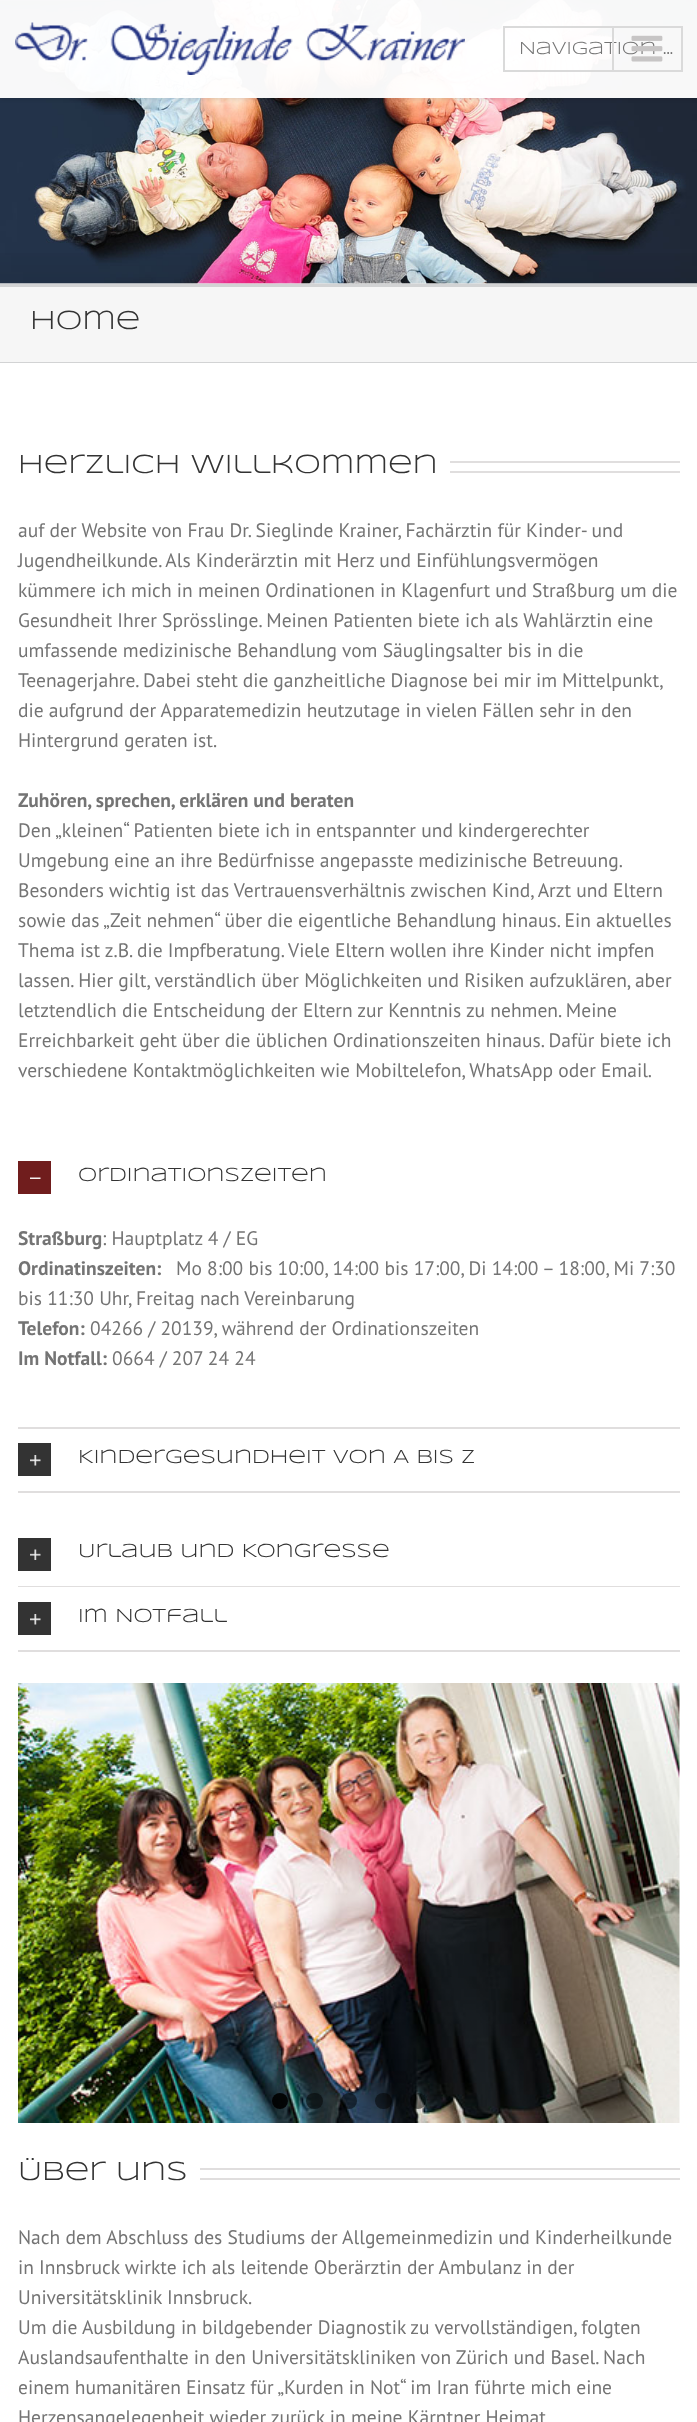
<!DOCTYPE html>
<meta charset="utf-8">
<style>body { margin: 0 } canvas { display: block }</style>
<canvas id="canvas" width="697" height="2422"></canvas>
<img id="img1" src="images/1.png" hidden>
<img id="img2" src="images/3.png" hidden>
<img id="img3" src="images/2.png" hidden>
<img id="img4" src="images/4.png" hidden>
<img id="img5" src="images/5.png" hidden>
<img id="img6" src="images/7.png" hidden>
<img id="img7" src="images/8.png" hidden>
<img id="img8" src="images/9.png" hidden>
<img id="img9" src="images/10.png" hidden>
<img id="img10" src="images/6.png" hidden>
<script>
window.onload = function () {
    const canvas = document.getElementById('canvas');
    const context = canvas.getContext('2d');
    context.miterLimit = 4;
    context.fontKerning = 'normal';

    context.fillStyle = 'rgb(246, 246, 246)';
    context.fillRect(0, 0, 697, 2422);
    context.fillStyle = 'rgb(233, 233, 233)';
    context.fillRect(0, 283, 697, 1);
    context.drawImage(document.getElementById('img1'), 0, 0, 697, 284);
    context.drawImage(document.getElementById('img2'), 0, 0, 697, 32);
    context.drawImage(document.getElementById('img3'), 0, 0, 111, 2);
    context.drawImage(document.getElementById('img4'), 0, 253, 697, 31);
    context.save();
    context.beginPath();
    context.moveTo(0, 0);
    context.lineTo(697, 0);
    context.lineTo(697, 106);
    context.lineTo(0, 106);
    context.closePath();
    context.moveTo(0, 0);
    context.lineTo(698, 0);
    context.lineTo(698, 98);
    context.lineTo(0, 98);
    context.closePath();
    context.clip('evenodd');
    context.fillStyle = 'rgba(0, 0, 0, 0.12)';
    context.filter = 'blur(2px)';
    context.beginPath();
    context.rect(0, 2, 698, 97);
    context.fill();
    context.filter = 'none';
    context.restore();
    context.fillStyle = 'rgba(255, 255, 255, 0.97)';
    context.fillRect(0, 0, 697, 98);
    context.drawImage(document.getElementById('img5'), 15, 22, 450, 53);
    context.strokeStyle = 'rgb(218, 218, 218)';
    context.lineWidth = 2;
    context.strokeRect(504, 27, 178, 44);
    context.fillStyle = 'rgb(210, 211, 212)';
    context.fillRect(0, 284, 697, 3);
    context.fillRect(0, 362, 697, 1);
    context.fillStyle = 'rgb(255, 255, 255)';
    context.fillRect(0, 363, 697, 2059);
    context.fillStyle = 'rgb(224, 222, 222)';
    context.fillRect(450, 461, 230, 2);
    context.fillRect(450, 471, 230, 2);
    context.fillStyle = 'rgb(112, 29, 29)';
    context.fillRect(18, 1161, 33, 33);
    context.drawImage(document.getElementById('img6'), 30, 1177, 11, 2);
    context.fillStyle = 'rgb(224, 222, 222)';
    context.fillRect(18, 1427, 662, 2);
    context.fillRect(18, 1491, 662, 2);
    context.fillStyle = 'rgb(51, 51, 51)';
    context.fillRect(18, 1443, 33, 33);
    context.drawImage(document.getElementById('img7'), 30, 1455, 11, 11);
    context.fillStyle = 'rgb(224, 222, 222)';
    context.fillRect(18, 1586, 662, 1);
    context.fillStyle = 'rgb(51, 51, 51)';
    context.fillRect(18, 1538, 33, 33);
    context.drawImage(document.getElementById('img8'), 30, 1549, 11, 11);
    context.fillStyle = 'rgb(224, 222, 222)';
    context.fillRect(18, 1650, 662, 2);
    context.fillStyle = 'rgb(51, 51, 51)';
    context.fillRect(18, 1602, 33, 33);
    context.drawImage(document.getElementById('img7'), 30, 1614, 11, 11);
    context.drawImage(document.getElementById('img9'), 18, 1683, 662, 440);
    context.fillStyle = 'rgba(0, 0, 0, 0.9)';
    context.beginPath();
    context.arc(280, 2101, 8, 0, 2 * Math.PI);
    context.fill();
    context.fillStyle = 'rgba(0, 0, 0, 0.5)';
    context.beginPath();
    context.roundRect(306, 2093, 17, 16, 8);
    context.fill();
    context.beginPath();
    context.arc(349, 2101, 8, 0, 2 * Math.PI);
    context.fill();
    context.beginPath();
    context.roundRect(375, 2093, 17, 16, 8);
    context.fill();
    context.beginPath();
    context.arc(418, 2101, 8, 0, 2 * Math.PI);
    context.fill();
    context.fillStyle = 'rgb(224, 222, 222)';
    context.fillRect(200, 2168, 480, 2);
    context.fillRect(200, 2178, 480, 2);
    context.font = '18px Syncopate';
    context.fillStyle = 'rgb(116, 116, 116)';
    context.fillText('Navigation ...', 519, 54);
    context.drawImage(document.getElementById('img10'), 631, 35, 32, 27);
    context.fillStyle = 'rgb(218, 218, 218)';
    context.fillRect(612, 27, 2, 44);
    context.font = '27px Syncopate';
    context.fillStyle = 'rgb(51, 51, 51)';
    context.fillText('Home', 30, 329);
    context.fillText('Herzlich Willkommen', 18, 473);
    context.font = '19.5px PT Sans';
    context.fillStyle = 'rgb(116, 116, 116)';
    context.fillText('auf der Website von Frau Dr. Sieglinde Krainer, Fachärztin für Kinder- und', 18, 537);
    context.fillText('Jugendheilkunde. Als Kinderärztin mit Herz und Einfühlungsvermögen', 18, 567);
    context.fillText('kümmere ich mich in meinen Ordinationen in Klagenfurt und Straßburg um die', 18, 597);
    context.fillText('Gesundheit Ihrer Sprösslinge. Meinen Patienten biete ich als Wahlärztin eine', 18, 627);
    context.fillText('umfassende medizinische Behandlung vom Säuglingsalter bis in die', 18, 657);
    context.wordSpacing = '-0.25px';
    context.fillText('Teenagerjahre. Dabei steht die ganzheitliche Diagnose bei mir im Mittelpunkt,', 18, 687);
    context.wordSpacing = '0px';
    context.fillText('die aufgrund der Apparatemedizin heutzutage in vielen Fällen sehr in den', 18, 717);
    context.fillText('Hintergrund geraten ist.', 18, 747);
    context.font = 'bold 19.5px PT Sans';
    context.fillText('Zuhören, sprechen, erklären und beraten', 18, 807);
    context.font = '19.5px PT Sans';
    context.fillText('Den „kleinen“ Patienten biete ich in entspannter und kindergerechter', 18, 837);
    context.wordSpacing = '-0.25px';
    context.fillText('Umgebung eine an ihre Bedürfnisse angepasste medizinische Betreuung.', 18, 867);
    context.wordSpacing = '0px';
    context.fillText('Besonders wichtig ist das Vertrauensverhältnis zwischen Kind, Arzt und Eltern', 18, 897);
    context.fillText('sowie das „Zeit nehmen“ über die eigentliche Behandlung hinaus. Ein aktuelles', 18, 927);
    context.fillText('Thema ist z.B. die Impfberatung. Viele Eltern wollen ihre Kinder nicht impfen', 18, 957);
    context.fillText('lassen. Hier gilt, verständlich über Möglichkeiten und Risiken aufzuklären, aber', 18, 987);
    context.fillText('letztendlich die Entscheidung der Eltern zur Kenntnis zu nehmen. Meine', 18, 1017);
    context.fillText('Erreichbarkeit geht über die üblichen Ordinationszeiten hinaus. Dafür biete ich', 18, 1047);
    context.fillText('verschiedene Kontaktmöglichkeiten wie Mobiltelefon, WhatsApp oder Email.', 18, 1077);
    context.font = '19.5px Syncopate';
    context.fillStyle = 'rgb(51, 51, 51)';
    context.fillText('Ordinationszeiten', 78, 1181);
    context.font = 'bold 19.5px PT Sans';
    context.fillStyle = 'rgb(116, 116, 116)';
    context.fillText('Straßburg', 18, 1245);
    context.font = '19.5px PT Sans';
    context.fillText(': Hauptplatz 4 / EG', 102, 1245);
    context.font = 'bold 19.5px PT Sans';
    context.fillText('Ordinatinszeiten:', 18, 1275);
    context.font = '19.5px PT Sans';
    context.fillText('Mo 8:00 bis 10:00, 14:00 bis 17:00, Di 14:00 – 18:00, Mi 7:30', 176, 1275);
    context.fillText('bis 11:30 Uhr, Freitag nach Vereinbarung', 18, 1305);
    context.font = 'bold 19.5px PT Sans';
    context.fillText('Telefon:', 18, 1335);
    context.font = '19.5px PT Sans';
    context.fillText('04266 / 20139, während der Ordinationszeiten', 90, 1335);
    context.font = 'bold 19.5px PT Sans';
    context.fillText('Im Notfall:', 18, 1365);
    context.font = '19.5px PT Sans';
    context.fillText('0664 / 207 24 24', 112, 1365);
    context.font = '19.5px Syncopate';
    context.fillStyle = 'rgb(51, 51, 51)';
    context.fillText('Kindergesundheit von A bis Z', 78, 1463);
    context.fillText('Urlaub und Kongresse', 78, 1557);
    context.fillText('Im Notfall', 78, 1622);
    context.font = '27px Syncopate';
    context.fillText('Über uns', 18, 2180);
    context.font = '19.5px PT Sans';
    context.fillStyle = 'rgb(116, 116, 116)';
    context.fillText('Nach dem Abschluss des Studiums der Allgemeinmedizin und Kinderheilkunde', 18, 2244);
    context.fillText('in Innsbruck wirkte ich als leitende Oberärztin der Ambulanz in der', 18, 2274);
    context.fillText('Universitätsklinik Innsbruck.', 18, 2304);
    context.fillText('Um die Ausbildung in bildgebender Diagnostik zu vervollständigen, folgten', 18, 2334);
    context.fillText('Auslandsaufenthalte in den Universitätskliniken von Zürich und Basel. Nach', 18, 2364);
    context.fillText('einem humanitären Einsatz für „Kurden in Not“ im Iran führte mich eine', 18, 2394);
    context.fillText('Herzensangelegenheit wieder zurück in meine Kärntner Heimat', 18, 2424);
};
</script>
